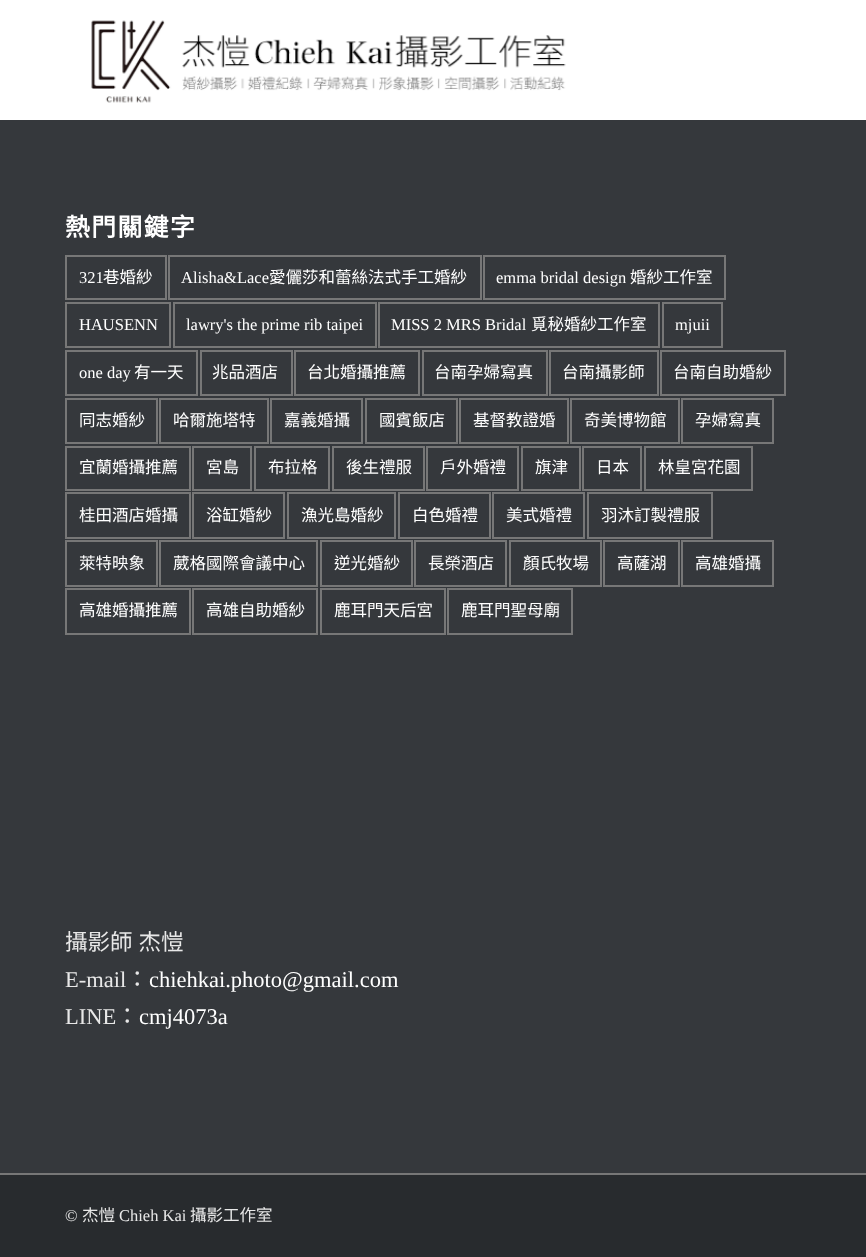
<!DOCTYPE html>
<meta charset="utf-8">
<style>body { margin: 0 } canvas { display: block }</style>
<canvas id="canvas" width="866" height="1257"></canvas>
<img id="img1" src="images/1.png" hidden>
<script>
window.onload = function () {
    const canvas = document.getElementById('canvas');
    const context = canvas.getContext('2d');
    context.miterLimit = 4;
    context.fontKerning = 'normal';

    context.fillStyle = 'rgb(53, 56, 60)';
    context.fillRect(0, 0, 866, 1257);
    context.fillStyle = 'rgb(255, 255, 255)';
    context.fillRect(0, 0, 866, 120);
    context.drawImage(document.getElementById('img1'), 91, 20, 475, 83);
    context.strokeStyle = 'rgb(119, 119, 119)';
    context.lineWidth = 2;
    context.strokeRect(66, 256, 100, 43);
    context.strokeRect(169, 256, 312, 43);
    context.strokeRect(484, 256, 241, 43);
    context.strokeRect(66, 303, 104, 44);
    context.strokeRect(174, 303, 202, 44);
    context.strokeRect(379, 303, 280, 44);
    context.strokeRect(663, 303, 59, 44);
    context.strokeRect(66, 351, 131, 44);
    context.strokeRect(201, 351, 91, 44);
    context.strokeRect(295, 351, 124, 44);
    context.strokeRect(423, 351, 124, 44);
    context.strokeRect(550, 351, 108, 44);
    context.strokeRect(661, 351, 124, 44);
    context.strokeRect(66, 399, 91, 44);
    context.strokeRect(160, 399, 108, 44);
    context.strokeRect(271, 399, 91, 44);
    context.strokeRect(366, 399, 91, 44);
    context.strokeRect(460, 399, 108, 44);
    context.strokeRect(571, 399, 108, 44);
    context.strokeRect(682, 399, 91, 44);
    context.strokeRect(66, 447, 124, 43);
    context.strokeRect(193, 447, 58, 43);
    context.strokeRect(255, 447, 74, 43);
    context.strokeRect(333, 447, 91, 43);
    context.strokeRect(427, 447, 91, 43);
    context.strokeRect(522, 447, 58, 43);
    context.strokeRect(583, 447, 58, 43);
    context.strokeRect(645, 447, 107, 43);
    context.strokeRect(66, 493, 124, 45);
    context.strokeRect(193, 493, 91, 45);
    context.strokeRect(288, 493, 107, 45);
    context.strokeRect(399, 493, 91, 45);
    context.strokeRect(493, 493, 91, 45);
    context.strokeRect(588, 493, 124, 45);
    context.strokeRect(66, 541, 91, 45);
    context.strokeRect(160, 541, 157, 45);
    context.strokeRect(321, 541, 91, 45);
    context.strokeRect(415, 541, 91, 45);
    context.strokeRect(510, 541, 91, 45);
    context.strokeRect(604, 541, 75, 45);
    context.strokeRect(682, 541, 91, 45);
    context.strokeRect(66, 589, 124, 45);
    context.strokeRect(193, 589, 124, 45);
    context.strokeRect(321, 589, 124, 45);
    context.strokeRect(448, 589, 124, 45);
    context.fillStyle = 'rgb(40, 43, 46)';
    context.fillRect(0, 1175, 866, 82);
    context.fillStyle = 'rgb(119, 119, 119)';
    context.fillRect(0, 1173, 866, 2);
    context.letterSpacing = '1.5px';
    context.font = 'bold 24.75px Noto Sans CJK TC';
    context.fillStyle = 'rgb(255, 255, 255)';
    context.fillText('熱門關鍵字', 65, 236);
    context.letterSpacing = '0px';
    context.font = '16.5px Liberation Serif';
    context.fillText('321', 79, 283);
    context.font = '16.5px Noto Sans CJK TC';
    context.fillText('巷婚紗', 103, 283);
    context.font = '16.5px Liberation Serif';
    context.fillText('Alisha&Lace', 181, 283);
    context.font = '16.5px Noto Sans CJK TC';
    context.fillText('愛儷莎和蕾絲法式手工婚紗', 269, 283);
    context.font = '16.5px Liberation Serif';
    context.fillText('emma bridal design', 496, 283);
    context.font = '16.5px Noto Sans CJK TC';
    context.fillText('婚紗工作室', 630, 283);
    context.font = '16.5px Liberation Serif';
    context.fillText('HAUSENN', 79, 330);
    context.fillText('lawry\'s the prime rib taipei', 186, 330);
    context.fillText('MISS 2 MRS Bridal', 391, 330);
    context.font = '16.5px Noto Sans CJK TC';
    context.fillText('覓秘婚紗工作室', 531, 330);
    context.font = '16.5px Liberation Serif';
    context.fillText('mjuii', 675, 330);
    context.fillText('one day', 79, 378);
    context.font = '16.5px Noto Sans CJK TC';
    context.fillText('有一天', 134, 378);
    context.fillText('兆品酒店', 212, 378);
    context.fillText('台北婚攝推薦', 307, 378);
    context.fillText('台南孕婦寫真', 434, 378);
    context.fillText('台南攝影師', 562, 378);
    context.fillText('台南自助婚紗', 673, 378);
    context.fillText('同志婚紗', 79, 426);
    context.fillText('哈爾施塔特', 173, 426);
    context.fillText('嘉義婚攝', 284, 426);
    context.fillText('國賓飯店', 379, 426);
    context.fillText('基督教證婚', 473, 426);
    context.fillText('奇美博物館', 584, 426);
    context.fillText('孕婦寫真', 695, 426);
    context.fillText('宜蘭婚攝推薦', 79, 473);
    context.fillText('宮島', 206, 473);
    context.fillText('布拉格', 268, 473);
    context.fillText('後生禮服', 346, 473);
    context.fillText('戶外婚禮', 440, 473);
    context.fillText('旗津', 535, 473);
    context.fillText('日本', 596, 473);
    context.fillText('林皇宮花園', 658, 473);
    context.fillText('桂田酒店婚攝', 79, 521);
    context.fillText('浴缸婚紗', 206, 521);
    context.fillText('漁光島婚紗', 301, 521);
    context.fillText('白色婚禮', 412, 521);
    context.fillText('美式婚禮', 506, 521);
    context.fillText('羽沐訂製禮服', 601, 521);
    context.fillText('萊特映象', 79, 569);
    context.fillText('葳格國際會議中心', 173, 569);
    context.fillText('逆光婚紗', 334, 569);
    context.fillText('長榮酒店', 428, 569);
    context.fillText('顏氏牧場', 523, 569);
    context.fillText('高薩湖', 617, 569);
    context.fillText('高雄婚攝', 695, 569);
    context.fillText('高雄婚攝推薦', 79, 616);
    context.fillText('高雄自助婚紗', 206, 616);
    context.fillText('鹿耳門天后宮', 334, 616);
    context.fillText('鹿耳門聖母廟', 461, 616);
    context.wordSpacing = '1px';
    context.font = '22.5px Noto Sans CJK TC';
    context.fillStyle = 'rgb(232, 232, 232)';
    context.fillText('攝影師 杰愷', 65, 950);
    context.wordSpacing = '0px';
    context.font = '22.5px Liberation Serif';
    context.fillText('E-mail', 65, 987);
    context.font = '22.5px Noto Sans CJK TC';
    context.fillText('：', 126, 987);
    context.font = '22.5px Liberation Serif';
    context.fillStyle = 'rgb(255, 255, 255)';
    context.fillText('chiehkai.photo@gmail.com', 149, 987);
    context.fillStyle = 'rgb(232, 232, 232)';
    context.fillText('LINE', 65, 1024);
    context.font = '22.5px Noto Sans CJK TC';
    context.fillText('：', 116, 1024);
    context.font = '22.5px Liberation Serif';
    context.fillStyle = 'rgb(255, 255, 255)';
    context.fillText('cmj4073a', 139, 1024);
    context.font = '16.5px Liberation Serif';
    context.fillStyle = 'rgb(232, 232, 232)';
    context.fillText('©', 65, 1221);
    context.font = '16.5px Noto Sans CJK TC';
    context.fillText('杰愷', 82, 1221);
    context.font = '16.5px Liberation Serif';
    context.fillText('Chieh Kai', 119, 1221);
    context.font = '16.5px Noto Sans CJK TC';
    context.fillText('攝影工作室', 190, 1221);
};
</script>
